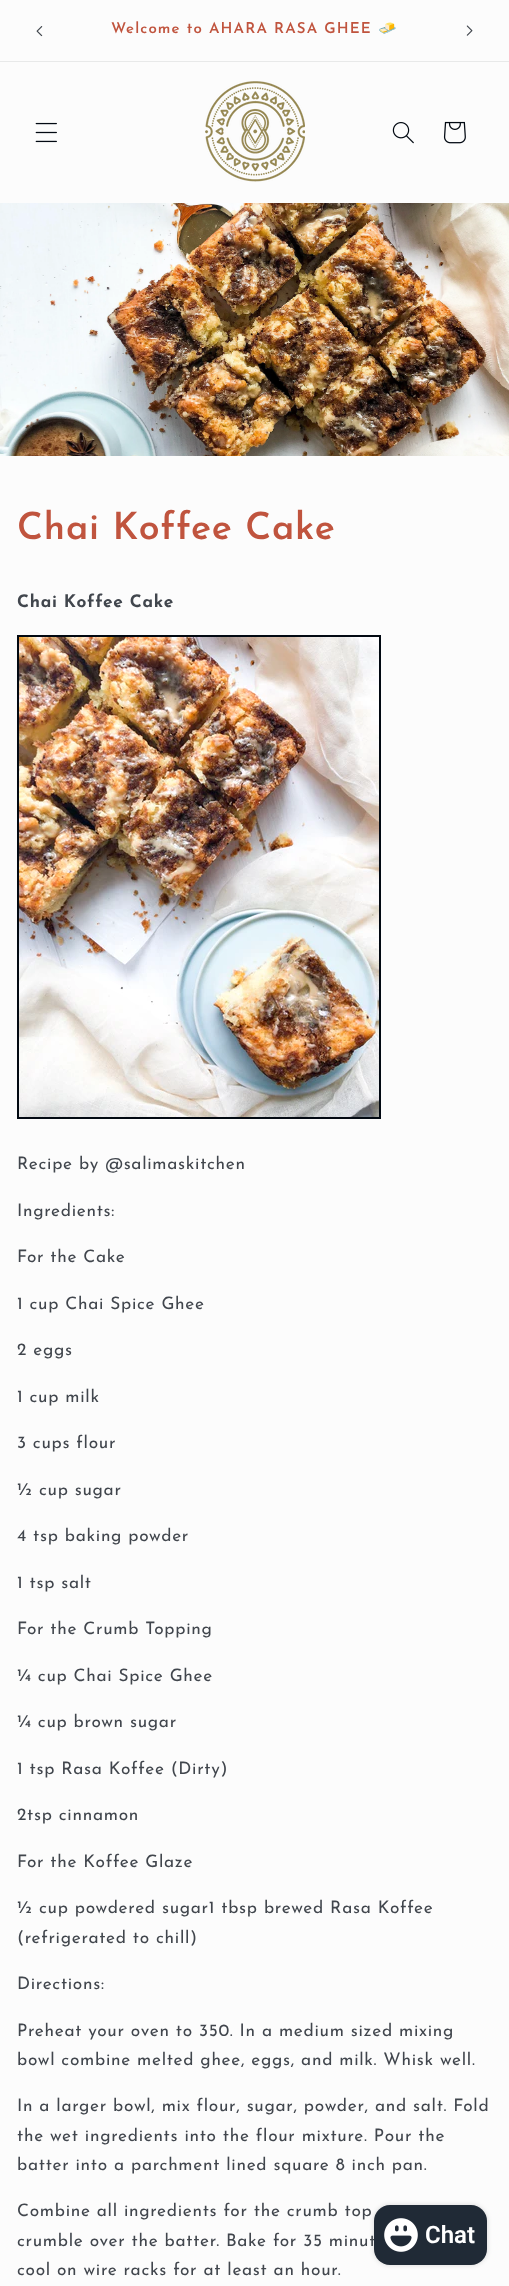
<!DOCTYPE html>
<meta charset="utf-8">
<style>body { margin: 0 } canvas { display: block }</style>
<canvas id="canvas" width="509" height="2286"></canvas>
<img id="img1" src="images/1.png" hidden>
<img id="img2" src="images/2.png" hidden>
<img id="img3" src="images/3.png" hidden>
<img id="img4" src="images/4.png" hidden>
<img id="img5" src="images/5.png" hidden>
<img id="img6" src="images/6.png" hidden>
<img id="img7" src="images/7.png" hidden>
<img id="img8" src="images/8.png" hidden>
<img id="img9" src="images/9.png" hidden>
<script>
window.onload = function () {
    const canvas = document.getElementById('canvas');
    const context = canvas.getContext('2d');
    context.miterLimit = 4;
    context.fontKerning = 'normal';

    context.fillStyle = 'rgb(252, 252, 252)';
    context.fillRect(0, 0, 509, 2286);
    context.fillStyle = 'rgb(232, 233, 233)';
    context.fillRect(0, 61, 509, 1);
    context.drawImage(document.getElementById('img1'), 36, 26, 7, 11);
    context.drawImage(document.getElementById('img2'), 466, 25, 7, 11);
    context.drawImage(document.getElementById('img3'), 35, 122, 22, 21);
    context.drawImage(document.getElementById('img4'), 205, 81, 100, 101);
    context.drawImage(document.getElementById('img5'), 392, 122, 22, 22);
    context.drawImage(document.getElementById('img6'), 443, 121, 23, 23);
    context.drawImage(document.getElementById('img7'), 0, 203, 509, 253);
    context.strokeStyle = 'rgb(2, 9, 18)';
    context.lineWidth = 2;
    context.strokeRect(18, 636, 362, 482);
    context.drawImage(document.getElementById('img8'), 19, 637, 360, 480);
    context.fillStyle = 'rgba(0, 0, 0, 0.15)';
    context.filter = 'blur(2.5px)';
    context.beginPath();
    context.roundRect(374, 2205, 113, 60, 16);
    context.fill();
    context.filter = 'none';
    context.letterSpacing = '1.15px';
    context.font = '600 15px Josefin Sans';
    context.fillStyle = 'rgb(192, 84, 62)';
    context.fillText('Welcome to AHARA RASA GHEE', 111, 33);
    context.font = 'bold 15px Noto Color Emoji';
    context.fillText('🧈', 378, 33);
    context.letterSpacing = '0.75px';
    context.font = '600 37.5px Josefin Sans';
    context.fillText('Chai Koffee Cake', 17, 539);
    context.letterSpacing = '0.7px';
    context.font = 'bold 17.25px Josefin Sans';
    context.fillStyle = 'rgb(65, 70, 77)';
    context.fillText('Chai Koffee Cake', 17, 607);
    context.font = '17.25px Josefin Sans';
    context.fillText('Recipe by @salimaskitchen', 17, 1169);
    context.fillText('Ingredients:', 17, 1216);
    context.fillText('For the Cake', 17, 1262);
    context.fillText('1 cup Chai Spice Ghee', 17, 1309);
    context.fillText('2 eggs', 17, 1355);
    context.fillText('1 cup milk', 17, 1402);
    context.fillText('3 cups flour', 17, 1448);
    context.fillText('½ cup sugar', 17, 1495);
    context.fillText('4 tsp baking powder', 17, 1541);
    context.fillText('1 tsp salt', 17, 1588);
    context.fillText('For the Crumb Topping', 17, 1634);
    context.fillText('¼ cup Chai Spice Ghee', 17, 1681);
    context.fillText('¼ cup brown sugar', 17, 1727);
    context.fillText('1 tsp Rasa Koffee (Dirty)', 17, 1774);
    context.fillText('2tsp cinnamon', 17, 1820);
    context.fillText('For the Koffee Glaze', 17, 1867);
    context.fillText('½ cup powdered sugar1 tbsp brewed Rasa Koffee', 17, 1913);
    context.fillText('(refrigerated to chill)', 17, 1943);
    context.fillText('Directions:', 17, 1989);
    context.fillText('Preheat your oven to 350. In a medium sized mixing', 17, 2036);
    context.fillText('bowl combine melted ghee, eggs, and milk. Whisk well.', 17, 2065);
    context.fillText('In a larger bowl, mix flour, sugar, powder, and salt. Fold', 17, 2111);
    context.fillText('the wet ingredients into the flour mixture. Pour the', 17, 2141);
    context.fillText('batter into a parchment lined square 8 inch pan.', 17, 2170);
    context.fillText('Combine all ingredients for the crumb top', 17, 2216);
    context.fillText('crumble over the batter. Bake for 35 minut', 17, 2246);
    context.fillText('cool on wire racks for at least an hour.', 17, 2275);
    context.fillStyle = 'rgb(32, 42, 54)';
    context.beginPath();
    context.roundRect(374, 2205, 113, 60, 16);
    context.fill();
    context.drawImage(document.getElementById('img9'), 384, 2218, 34, 34);
    context.letterSpacing = '0px';
    context.font = '600 24px Roboto';
    context.fillStyle = 'rgb(255, 255, 255)';
    context.fillText('Chat', 425, 2243);
};
</script>
